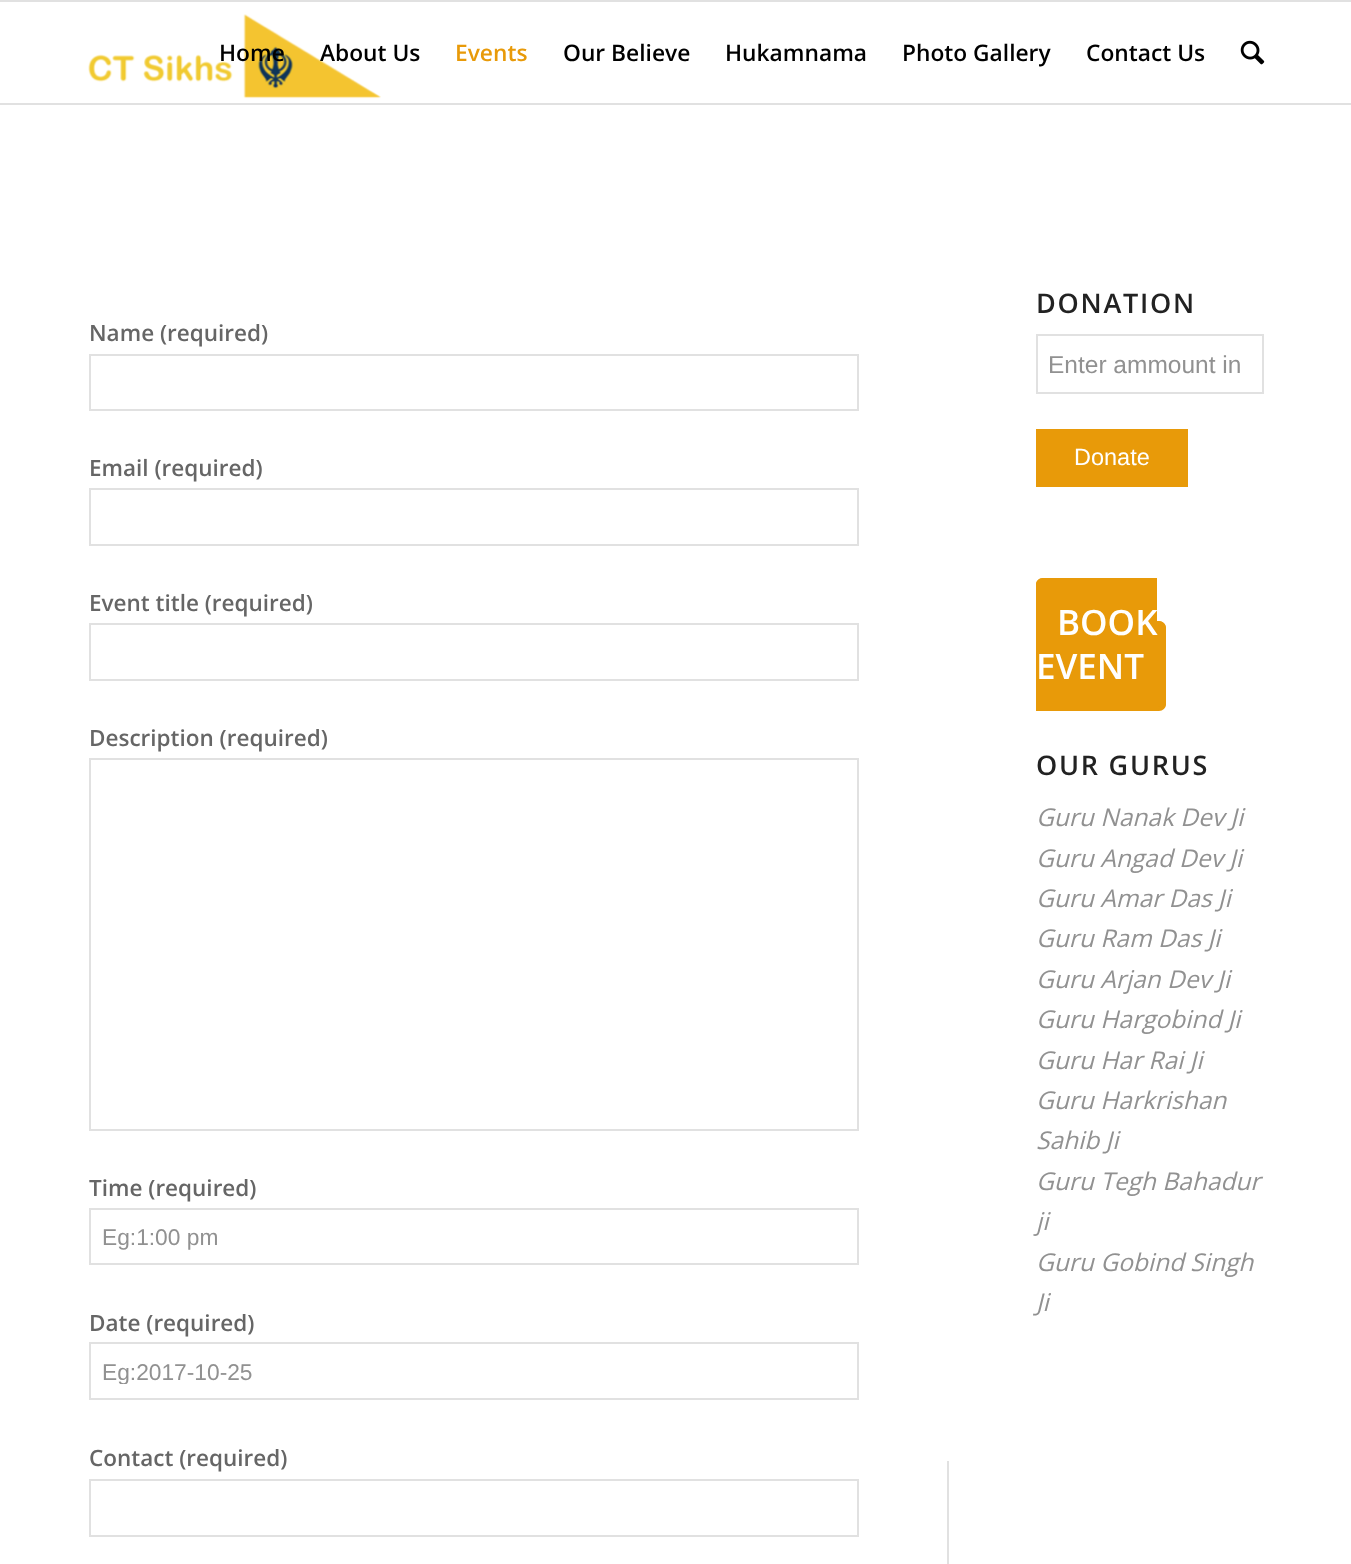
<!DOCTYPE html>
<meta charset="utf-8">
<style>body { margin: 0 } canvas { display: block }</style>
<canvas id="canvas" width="1351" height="1564"></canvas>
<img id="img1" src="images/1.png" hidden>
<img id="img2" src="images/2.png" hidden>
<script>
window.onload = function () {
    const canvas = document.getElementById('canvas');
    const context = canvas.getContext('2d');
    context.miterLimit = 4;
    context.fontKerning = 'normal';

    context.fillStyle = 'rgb(255, 255, 255)';
    context.fillRect(0, 0, 1351, 1564);
    context.fillStyle = 'rgb(225, 225, 225)';
    context.fillRect(0, 0, 1351, 2);
    context.fillRect(0, 103, 1351, 2);
    context.drawImage(document.getElementById('img1'), 88, 14, 293, 85);
    context.drawImage(document.getElementById('img2'), 1240, 40, 25, 25);
    context.fillRect(947, 1461, 2, 103);
    context.strokeStyle = 'rgb(225, 225, 225)';
    context.lineWidth = 2;
    context.strokeRect(90, 355, 768, 55);
    context.strokeRect(90, 489, 768, 56);
    context.strokeRect(90, 624, 768, 56);
    context.strokeRect(90, 759, 768, 371);
    context.strokeRect(90, 1209, 768, 55);
    context.strokeRect(90, 1343, 768, 56);
    context.strokeRect(90, 1480, 768, 56);
    context.strokeRect(1037, 335, 226, 58);
    context.fillStyle = 'rgb(232, 154, 9)';
    context.fillRect(1036, 429, 152, 58);
    context.beginPath();
    context.roundRect(1036, 578, 121, 89, [7, 0, 0, 7]);
    context.fill();
    context.beginPath();
    context.moveTo(1043, 578);
    context.lineTo(1157, 578);
    context.lineTo(1157, 667);
    context.lineTo(1043, 667);
    context.bezierCurveTo(1039, 667, 1036, 664, 1036, 660);
    context.lineTo(1036, 584);
    context.bezierCurveTo(1036, 581, 1039, 578, 1043, 578);
    context.closePath();
    context.moveTo(1043, 581);
    context.lineTo(1157, 581);
    context.lineTo(1157, 663);
    context.lineTo(1043, 663);
    context.bezierCurveTo(1041, 663, 1040, 662, 1040, 660);
    context.lineTo(1040, 584);
    context.bezierCurveTo(1040, 583, 1041, 581, 1043, 581);
    context.closePath();
    context.fill('evenodd');
    context.beginPath();
    context.roundRect(1036, 621, 130, 90, [0, 7, 7, 0]);
    context.fill();
    context.beginPath();
    context.moveTo(1036, 621);
    context.lineTo(1158, 621);
    context.bezierCurveTo(1162, 621, 1166, 624, 1166, 628);
    context.lineTo(1166, 704);
    context.bezierCurveTo(1166, 707, 1162, 710, 1158, 710);
    context.lineTo(1036, 710);
    context.closePath();
    context.moveTo(1036, 625);
    context.lineTo(1158, 625);
    context.bezierCurveTo(1160, 625, 1162, 626, 1162, 628);
    context.lineTo(1162, 704);
    context.bezierCurveTo(1162, 705, 1160, 707, 1158, 707);
    context.lineTo(1036, 707);
    context.closePath();
    context.fill('evenodd');
    context.font = '600 22.75px Open Sans';
    context.fillStyle = 'rgb(0, 0, 0)';
    context.fillText('Home', 219, 61);
    context.fillText('About Us', 320, 61);
    context.fillStyle = 'rgb(232, 154, 9)';
    context.fillText('Events', 455, 61);
    context.fillStyle = 'rgb(0, 0, 0)';
    context.fillText('Our Believe', 563, 61);
    context.fillText('Hukamnama', 725, 61);
    context.fillText('Photo Gallery', 902, 61);
    context.fillText('Contact Us', 1086, 61);
    context.font = '600 22.5px Open Sans';
    context.fillStyle = 'rgb(102, 102, 102)';
    context.fillText('Name (required)', 89, 341);
    context.fillText('Email (required)', 89, 476);
    context.fillText('Event title (required)', 89, 611);
    context.fillText('Description (required)', 89, 746);
    context.fillText('Time (required)', 89, 1196);
    context.font = '22.75px Liberation Sans';
    context.fillStyle = 'rgb(145, 145, 145)';
    context.fillText('Eg:1:00 pm', 102, 1245);
    context.font = '600 22.5px Open Sans';
    context.fillStyle = 'rgb(102, 102, 102)';
    context.fillText('Date (required)', 89, 1331);
    context.save();
    context.beginPath();
    context.rect(102, 1358, 745, 26);
    context.clip();
    context.font = '22.75px Liberation Sans';
    context.fillStyle = 'rgb(145, 145, 145)';
    context.fillText('Eg:2017-10-25', 102, 1380);
    context.restore();
    context.fillText('Contact (required)', 89, 1466);
    context.letterSpacing = '1.75px';
    context.font = '600 27px Open Sans';
    context.fillStyle = 'rgb(34, 34, 34)';
    context.fillText('DONATION', 1036, 313);
    context.letterSpacing = '0px';
    context.font = '24.5px Liberation Sans';
    context.fillStyle = 'rgb(145, 145, 145)';
    context.fillText('Enter ammount in', 1048, 373);
    context.font = '23.5px Liberation Sans';
    context.fillStyle = 'rgb(255, 255, 255)';
    context.fillText('Donate', 1074, 465);
    context.font = '600 35px Open Sans';
    context.fillText('BOOK', 1057, 635);
    context.fillText('EVENT', 1036, 679);
    context.letterSpacing = '1.75px';
    context.font = '600 27px Open Sans';
    context.fillStyle = 'rgb(34, 34, 34)';
    context.fillText('OUR GURUS', 1036, 775);
    context.letterSpacing = '0px';
    context.font = 'italic 24.5px Open Sans';
    context.fillStyle = 'rgb(145, 145, 145)';
    context.fillText('Guru Nanak Dev Ji', 1036, 826);
    context.fillText('Guru Angad Dev Ji', 1036, 867);
    context.fillText('Guru Amar Das Ji', 1036, 907);
    context.fillText('Guru Ram Das Ji', 1036, 947);
    context.fillText('Guru Arjan Dev Ji', 1036, 988);
    context.fillText('Guru Hargobind Ji', 1036, 1028);
    context.fillText('Guru Har Rai Ji', 1036, 1069);
    context.fillText('Guru Harkrishan', 1036, 1109);
    context.fillText('Sahib Ji', 1036, 1149);
    context.fillText('Guru Tegh Bahadur', 1036, 1190);
    context.fillText('ji', 1036, 1230);
    context.fillText('Guru Gobind Singh', 1036, 1271);
    context.fillText('Ji', 1036, 1311);
};
</script>
